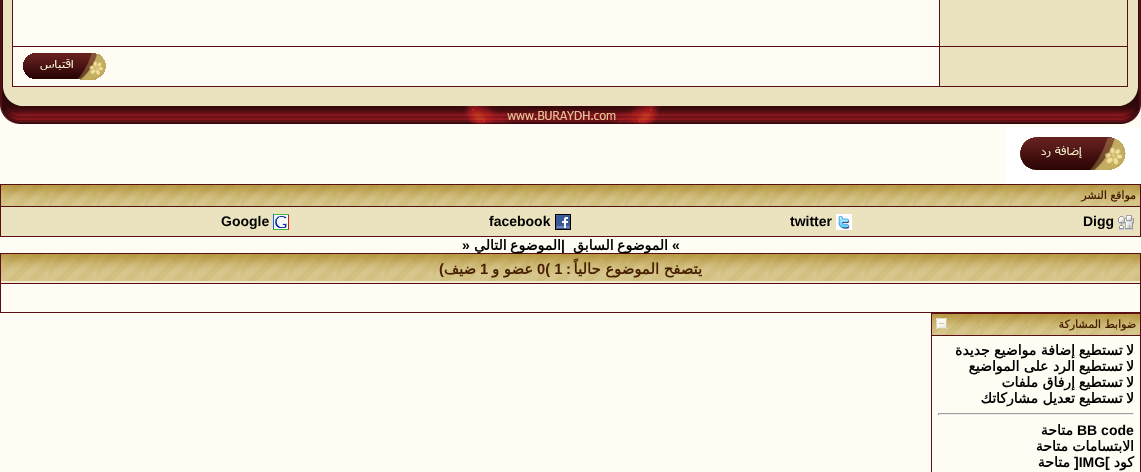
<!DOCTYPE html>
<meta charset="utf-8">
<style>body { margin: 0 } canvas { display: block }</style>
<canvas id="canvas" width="1141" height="472"></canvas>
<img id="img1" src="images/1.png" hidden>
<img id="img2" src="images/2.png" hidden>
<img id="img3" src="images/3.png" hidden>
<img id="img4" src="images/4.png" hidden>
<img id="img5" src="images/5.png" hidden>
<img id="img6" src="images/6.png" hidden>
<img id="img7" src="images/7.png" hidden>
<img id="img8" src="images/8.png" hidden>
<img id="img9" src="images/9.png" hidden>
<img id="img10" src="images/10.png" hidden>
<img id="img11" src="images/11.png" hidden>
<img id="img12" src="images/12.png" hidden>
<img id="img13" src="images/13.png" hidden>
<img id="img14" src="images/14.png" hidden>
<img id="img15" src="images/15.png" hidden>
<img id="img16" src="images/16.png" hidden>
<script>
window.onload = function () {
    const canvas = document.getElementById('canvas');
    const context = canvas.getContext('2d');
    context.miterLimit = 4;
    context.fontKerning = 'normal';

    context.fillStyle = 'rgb(255, 252, 243)';
    context.fillRect(0, 0, 1141, 472);
    context.drawImage(document.getElementById('img1'), 1128, 0, 13, 87);
    context.fillStyle = 'rgb(88, 15, 19)';
    context.fillRect(12, 0, 1116, 87);
    context.fillStyle = 'rgb(235, 227, 191)';
    context.fillRect(940, 0, 187, 46);
    context.fillStyle = 'rgb(255, 252, 243)';
    context.fillRect(13, 0, 926, 46);
    context.fillStyle = 'rgb(235, 227, 191)';
    context.fillRect(940, 47, 187, 39);
    context.fillStyle = 'rgb(255, 252, 243)';
    context.fillRect(13, 47, 926, 39);
    context.drawImage(document.getElementById('img2'), 23, 53, 83, 27);
    context.drawImage(document.getElementById('img3'), 0, 0, 12, 87);
    context.drawImage(document.getElementById('img4'), 1070, 87, 71, 37);
    context.drawImage(document.getElementById('img5'), 46, 87, 1024, 37);
    context.drawImage(document.getElementById('img6'), 462, 106, 200, 18);
    context.drawImage(document.getElementById('img7'), 0, 87, 46, 37);
    context.drawImage(document.getElementById('img8'), 1006, 127, 135, 57);
    context.fillStyle = 'rgb(88, 15, 19)';
    context.fillRect(0, 184, 1141, 53);
    context.drawImage(document.getElementById('img9'), 1, 185, 1139, 21);
    context.fillStyle = 'rgb(235, 227, 191)';
    context.fillRect(1, 207, 1139, 29);
    context.drawImage(document.getElementById('img10'), 1118, 215, 16, 15);
    context.drawImage(document.getElementById('img11'), 836, 214, 16, 16);
    context.drawImage(document.getElementById('img12'), 555, 214, 16, 16);
    context.drawImage(document.getElementById('img13'), 273, 214, 16, 16);
    context.fillStyle = 'rgb(88, 15, 19)';
    context.fillRect(0, 253, 1141, 60);
    context.fillStyle = 'rgb(242, 234, 206)';
    context.fillRect(1, 281, 1139, 2);
    context.drawImage(document.getElementById('img14'), 1, 254, 1139, 27);
    context.fillStyle = 'rgb(255, 252, 243)';
    context.fillRect(1, 284, 1139, 28);
    context.fillStyle = 'rgb(88, 15, 19)';
    context.fillRect(931, 313, 210, 159);
    context.drawImage(document.getElementById('img15'), 932, 314, 208, 21);
    context.drawImage(document.getElementById('img16'), 936, 318, 11, 11);
    context.fillStyle = 'rgb(255, 252, 243)';
    context.fillRect(932, 336, 208, 136);
    context.fillStyle = 'rgb(159, 159, 159)';
    context.fillRect(938, 413, 196, 1);
    context.fillStyle = 'rgb(238, 238, 238)';
    context.fillRect(1133, 413, 1, 2);
    context.fillRect(938, 414, 196, 1);
    context.fillStyle = 'rgb(159, 159, 159)';
    context.fillRect(938, 413, 1, 2);
    context.direction = 'rtl';
    context.font = 'bold 11px DejaVu Sans';
    context.fillStyle = 'rgb(71, 31, 0)';
    context.fillText('مواقع النشر', 1136, 199);
    context.direction = 'ltr';
    context.font = 'bold 14px Liberation Sans';
    context.fillStyle = 'rgb(0, 0, 0)';
    context.fillText('Digg', 1083, 226);
    context.fillText('twitter', 790, 226);
    context.fillText('facebook', 489, 226);
    context.fillText('Google', 221, 226);
    context.fillText('«', 672, 250);
    context.wordSpacing = '-1px';
    context.direction = 'rtl';
    context.font = 'bold 14px DejaVu Sans';
    context.fillText('الموضوع السابق', 668, 250);
    context.wordSpacing = '0px';
    context.direction = 'ltr';
    context.font = 'bold 14px Liberation Sans';
    context.fillText('|', 561, 250);
    context.wordSpacing = '-1px';
    context.direction = 'rtl';
    context.font = 'bold 14px DejaVu Sans';
    context.fillText('الموضوع التالي', 561, 250);
    context.wordSpacing = '0px';
    context.direction = 'ltr';
    context.font = 'bold 14px Liberation Sans';
    context.fillText('»', 462, 250);
    context.direction = 'rtl';
    context.font = 'bold 14.75px DejaVu Sans';
    context.fillStyle = 'rgb(71, 31, 0)';
    context.fillText('يتصفح الموضوع حالياً', 702, 274);
    context.font = 'bold 14.75px Liberation Sans';
    context.fillText(':', 571, 274);
    context.direction = 'ltr';
    context.fillText('0( 1', 537, 274);
    context.direction = 'rtl';
    context.font = 'bold 14.75px DejaVu Sans';
    context.fillText('عضو و', 533, 274);
    context.direction = 'ltr';
    context.font = 'bold 14.75px Liberation Sans';
    context.fillText('1', 480, 274);
    context.direction = 'rtl';
    context.font = 'bold 14.75px DejaVu Sans';
    context.fillText('ضيف', 476, 274);
    context.font = 'bold 14.75px Liberation Sans';
    context.fillText(')', 444, 274);
    context.font = 'bold 11px DejaVu Sans';
    context.fillText('ضوابط المشاركة', 1136, 328);
    context.wordSpacing = '-1px';
    context.font = 'bold 14px DejaVu Sans';
    context.fillStyle = 'rgb(0, 0, 0)';
    context.fillText('لا تستطيع', 1134, 355);
    context.wordSpacing = '0px';
    context.fillText('إضافة مواضيع جديدة', 1075, 355);
    context.wordSpacing = '-1px';
    context.fillText('لا تستطيع', 1134, 371);
    context.wordSpacing = '0px';
    context.fillText('الرد على المواضيع', 1075, 371);
    context.wordSpacing = '-1px';
    context.fillText('لا تستطيع', 1134, 387);
    context.wordSpacing = '0px';
    context.fillText('إرفاق ملفات', 1075, 387);
    context.wordSpacing = '-1px';
    context.fillText('لا تستطيع', 1134, 403);
    context.wordSpacing = '0px';
    context.fillText('تعديل مشاركاتك', 1075, 403);
    context.direction = 'ltr';
    context.font = 'bold 14px Liberation Sans';
    context.fillText('BB code', 1077, 435);
    context.direction = 'rtl';
    context.font = 'bold 14px DejaVu Sans';
    context.fillText('متاحة', 1073, 435);
    context.fillText('الابتسامات', 1134, 451);
    context.fillText('متاحة', 1068, 451);
    context.fillText('كود', 1134, 467);
    context.direction = 'ltr';
    context.font = 'bold 14px Liberation Sans';
    context.fillText(']IMG[', 1074, 467);
    context.direction = 'rtl';
    context.font = 'bold 14px DejaVu Sans';
    context.fillText('متاحة', 1070, 467);
};
</script>
